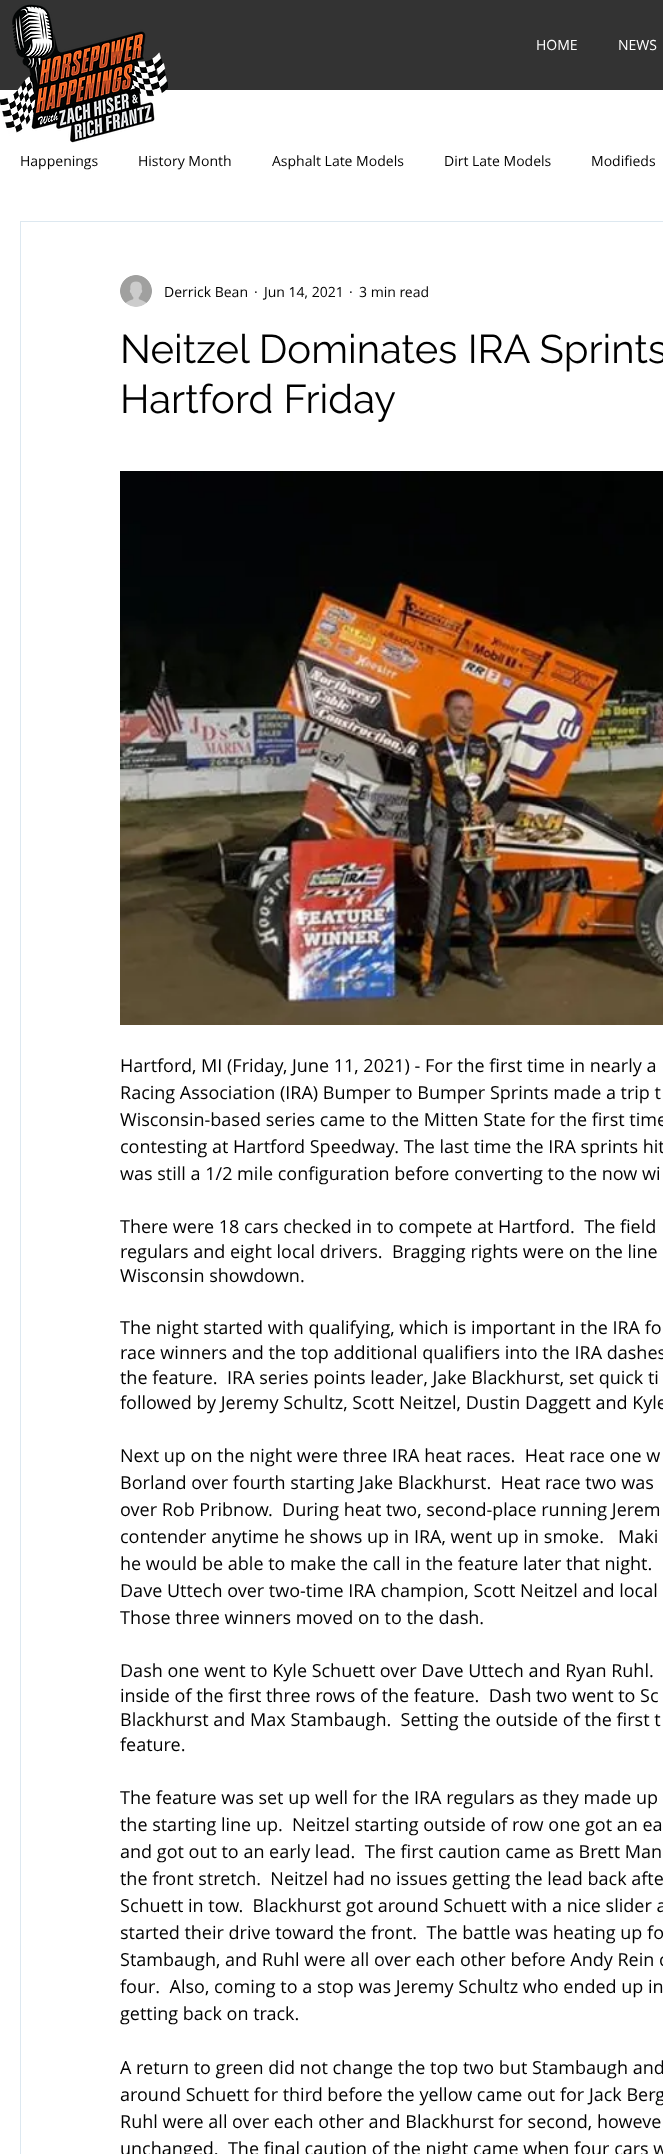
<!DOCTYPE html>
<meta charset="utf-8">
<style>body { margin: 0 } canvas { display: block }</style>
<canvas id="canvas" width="663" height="2154"></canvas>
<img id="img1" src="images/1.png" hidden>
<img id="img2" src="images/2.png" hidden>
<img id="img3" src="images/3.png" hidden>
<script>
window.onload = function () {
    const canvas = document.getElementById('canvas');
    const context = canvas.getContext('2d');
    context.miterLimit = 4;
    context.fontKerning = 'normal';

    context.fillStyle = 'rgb(255, 255, 255)';
    context.fillRect(0, 0, 663, 2154);
    context.fillStyle = 'rgb(51, 51, 51)';
    context.fillRect(0, 0, 663, 90);
    context.drawImage(document.getElementById('img1'), 0, 4, 168, 139);
    context.strokeStyle = 'rgb(221, 232, 240)';
    context.strokeRect(20.5, 221.5, 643, 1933);
    context.drawImage(document.getElementById('img2'), 120, 275, 32, 32);
    context.drawImage(document.getElementById('img3'), 120, 471, 543, 554);
    context.font = '14px Open Sans';
    context.fillStyle = 'rgb(255, 255, 255)';
    context.fillText('HOME', 536, 50);
    context.fillText('NEWS', 618, 50);
    context.fillStyle = 'rgb(0, 0, 0)';
    context.fillText('Happenings', 20, 166);
    context.fillText('History Month', 138, 166);
    context.fillText('Asphalt Late Models', 272, 166);
    context.fillText('Dirt Late Models', 444, 166);
    context.fillText('Modifieds', 591, 166);
    context.fillText('Derrick Bean', 164, 297);
    context.fillText('·', 254, 297);
    context.fillText('Jun 14, 2021', 264, 297);
    context.fillText('·', 349, 297);
    context.fillText('3 min read', 359, 297);
    context.font = '40px Raleway';
    context.fillText('Neitzel Dominates IRA Sprints', 120, 363);
    context.fillText('Hartford Friday', 120, 413);
    context.font = '18px Open Sans';
    context.fillText('Hartford, MI (Friday, June 11, 2021) - For the first time in nearly a', 120, 1072);
    context.fillText('Racing Association (IRA) Bumper to Bumper Sprints made a trip t', 120, 1099);
    context.fillText('Wisconsin-based series came to the Mitten State for the first time', 120, 1126);
    context.fillText('contesting at Hartford Speedway. The last time the IRA sprints hit', 120, 1153);
    context.fillText('was still a 1/2 mile configuration before converting to the now wi', 120, 1180);
    context.fillText('There were 18 cars checked in to compete at Hartford.  The field', 120, 1233);
    context.fillText('regulars and eight local drivers.  Bragging rights were on the line', 120, 1258);
    context.fillText('Wisconsin showdown.', 120, 1282);
    context.fillText('The night started with qualifying, which is important in the IRA fo', 120, 1334);
    context.fillText('race winners and the top additional qualifiers into the IRA dashes', 120, 1359);
    context.fillText('the feature.  IRA series points leader, Jake Blackhurst, set quick ti', 120, 1384);
    context.fillText('followed by Jeremy Schultz, Scott Neitzel, Dustin Daggett and Kyle', 120, 1409);
    context.fillText('Next up on the night were three IRA heat races.  Heat race one w', 120, 1462);
    context.fillText('Borland over fourth starting Jake Blackhurst.  Heat race two was', 120, 1489);
    context.fillText('over Rob Pribnow.  During heat two, second-place running Jerem', 120, 1516);
    context.fillText('contender anytime he shows up in IRA, went up in smoke.   Maki', 120, 1543);
    context.fillText('he would be able to make the call in the feature later that night.', 120, 1570);
    context.fillText('Dave Uttech over two-time IRA champion, Scott Neitzel and local', 120, 1597);
    context.fillText('Those three winners moved on to the dash.', 120, 1624);
    context.fillText('Dash one went to Kyle Schuett over Dave Uttech and Ryan Ruhl.', 120, 1677);
    context.fillText('inside of the first three rows of the feature.  Dash two went to Sc', 120, 1702);
    context.fillText('Blackhurst and Max Stambaugh.  Setting the outside of the first t', 120, 1726);
    context.fillText('feature.', 120, 1751);
    context.fillText('The feature was set up well for the IRA regulars as they made up', 120, 1804);
    context.fillText('the starting line up.  Neitzel starting outside of row one got an ea', 120, 1831);
    context.fillText('and got out to an early lead.  The first caution came as Brett Man', 120, 1858);
    context.fillText('the front stretch.  Neitzel had no issues getting the lead back afte', 120, 1885);
    context.fillText('Schuett in tow.  Blackhurst got around Schuett with a nice slider a', 120, 1912);
    context.fillText('started their drive toward the front.  The battle was heating up fo', 120, 1939);
    context.fillText('Stambaugh, and Ruhl were all over each other before Andy Rein c', 120, 1966);
    context.fillText('four.  Also, coming to a stop was Jeremy Schultz who ended up in', 120, 1993);
    context.fillText('getting back on track.', 120, 2020);
    context.fillText('A return to green did not change the top two but Stambaugh and', 120, 2074);
    context.fillText('around Schuett for third before the yellow came out for Jack Berg', 120, 2101);
    context.fillText('Ruhl were all over each other and Blackhurst for second, howeve', 120, 2128);
    context.fillText('unchanged.  The final caution of the night came when four cars w', 120, 2155);
};
</script>
